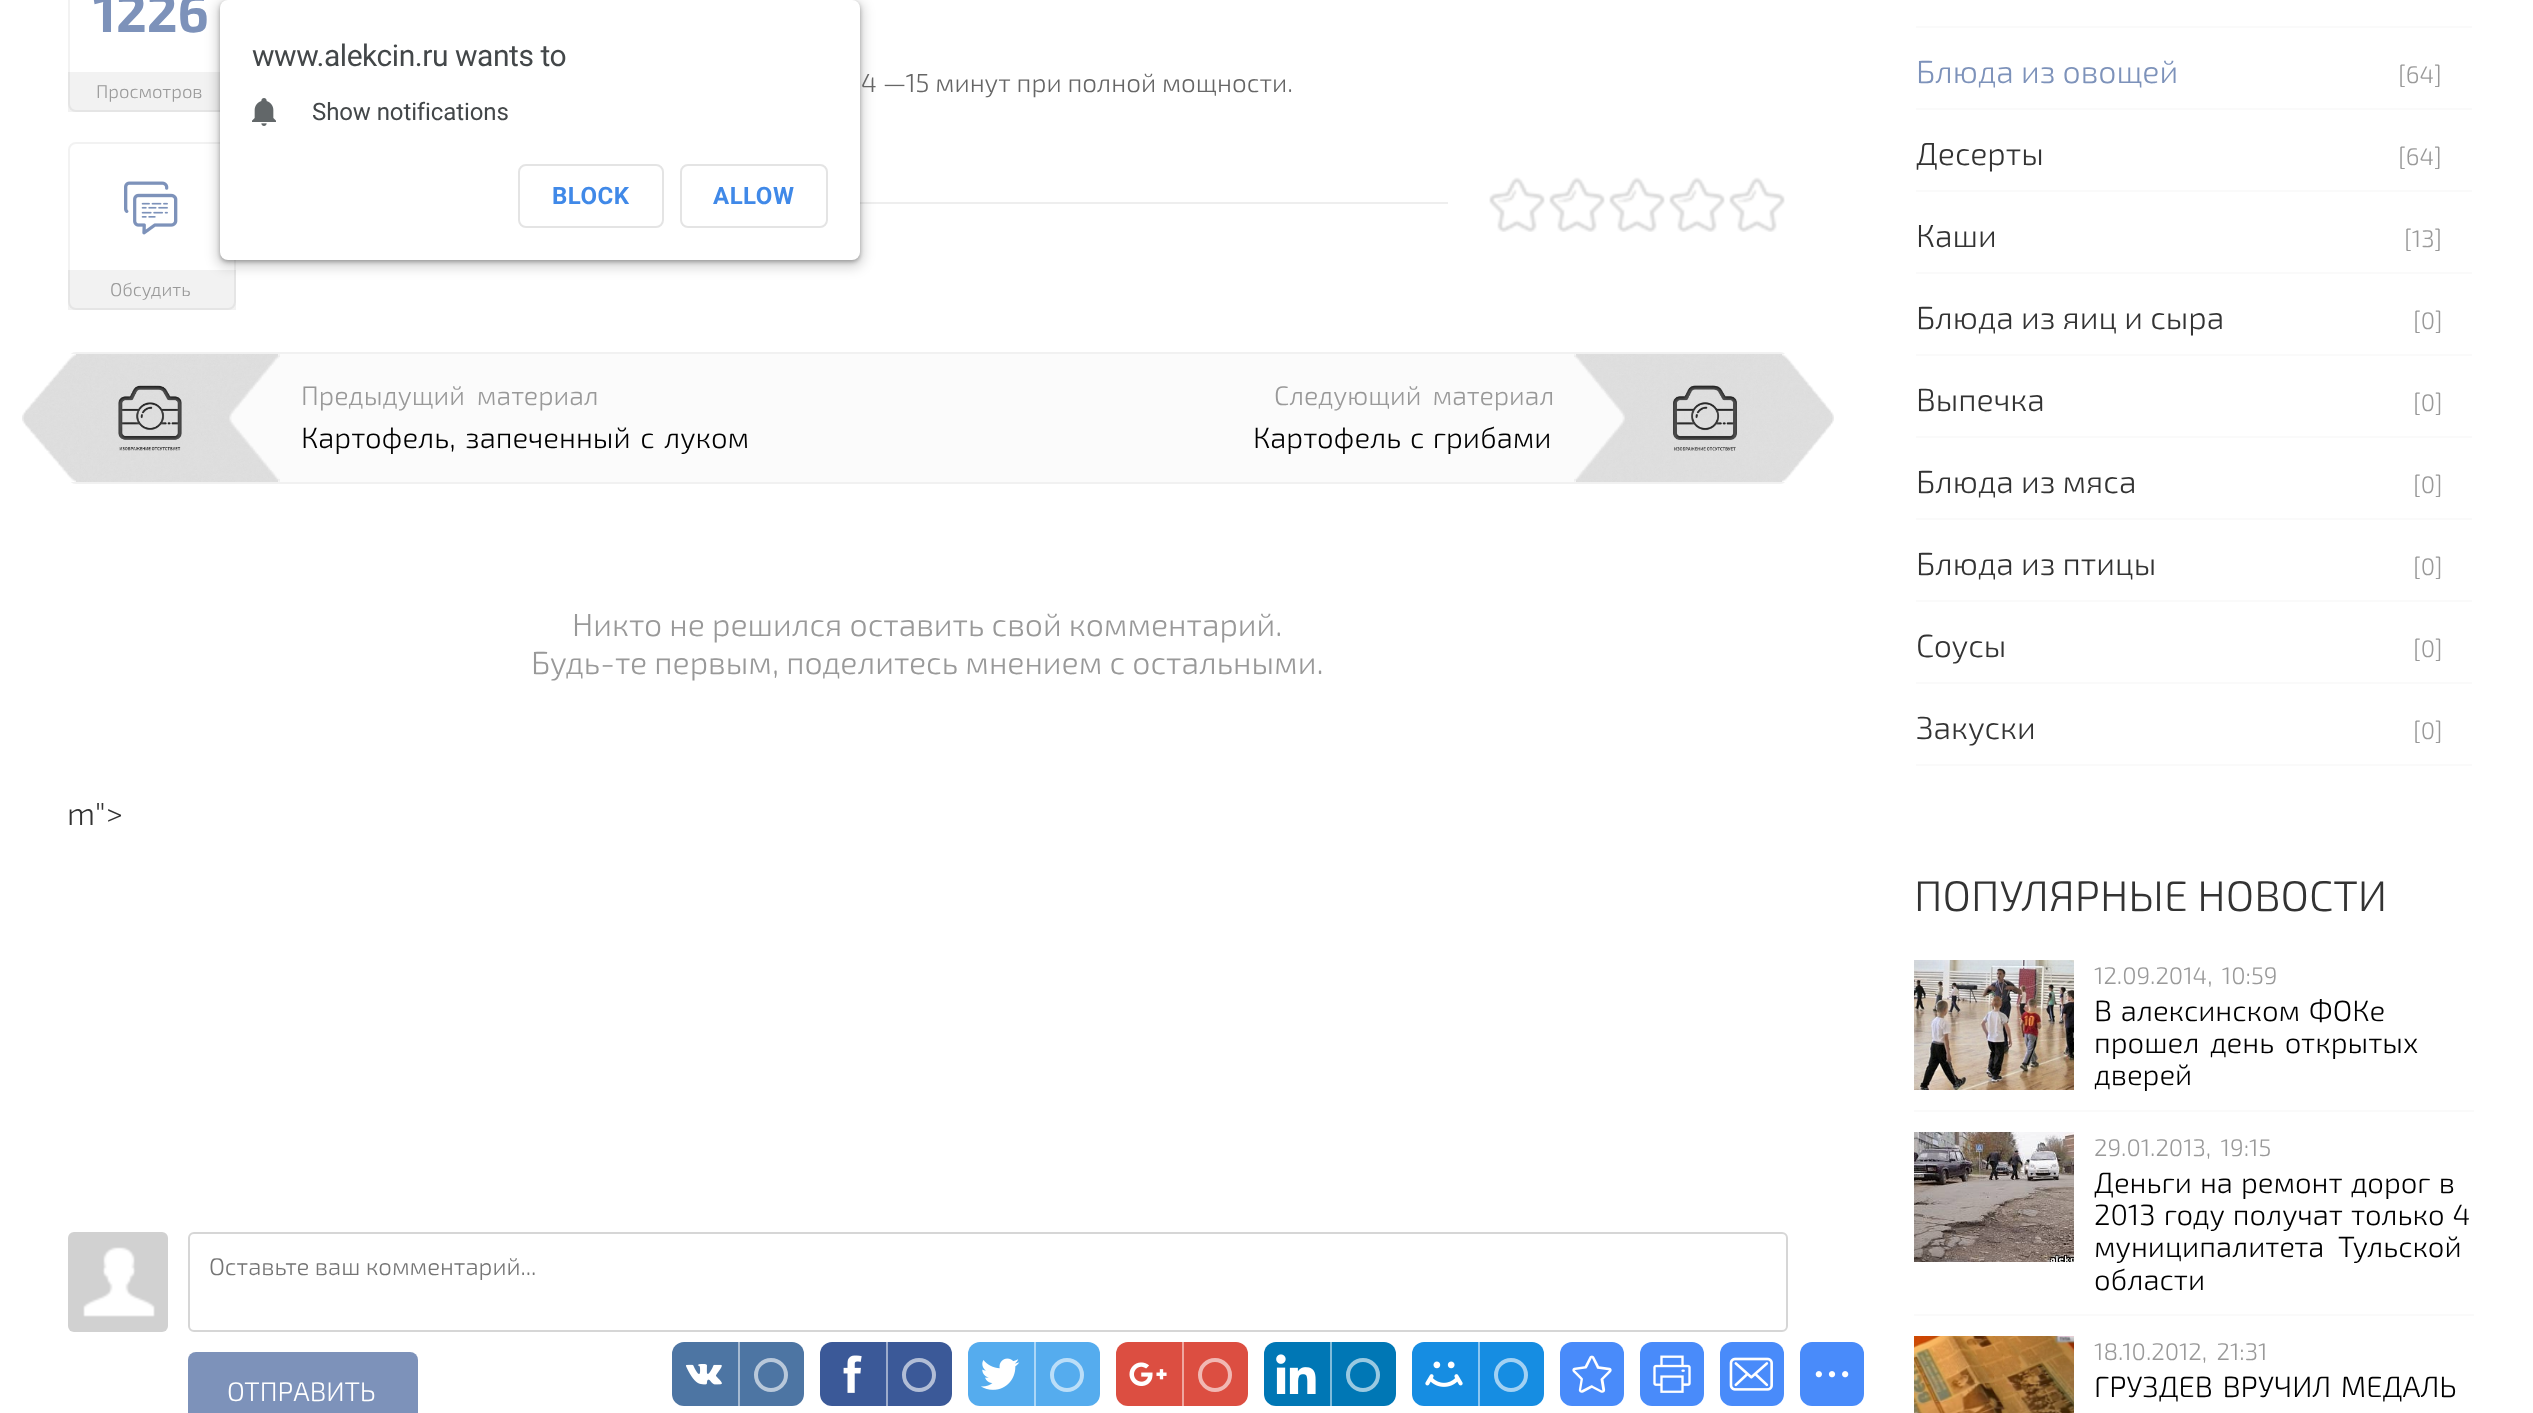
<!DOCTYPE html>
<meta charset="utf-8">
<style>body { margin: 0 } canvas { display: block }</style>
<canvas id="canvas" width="2533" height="1413"></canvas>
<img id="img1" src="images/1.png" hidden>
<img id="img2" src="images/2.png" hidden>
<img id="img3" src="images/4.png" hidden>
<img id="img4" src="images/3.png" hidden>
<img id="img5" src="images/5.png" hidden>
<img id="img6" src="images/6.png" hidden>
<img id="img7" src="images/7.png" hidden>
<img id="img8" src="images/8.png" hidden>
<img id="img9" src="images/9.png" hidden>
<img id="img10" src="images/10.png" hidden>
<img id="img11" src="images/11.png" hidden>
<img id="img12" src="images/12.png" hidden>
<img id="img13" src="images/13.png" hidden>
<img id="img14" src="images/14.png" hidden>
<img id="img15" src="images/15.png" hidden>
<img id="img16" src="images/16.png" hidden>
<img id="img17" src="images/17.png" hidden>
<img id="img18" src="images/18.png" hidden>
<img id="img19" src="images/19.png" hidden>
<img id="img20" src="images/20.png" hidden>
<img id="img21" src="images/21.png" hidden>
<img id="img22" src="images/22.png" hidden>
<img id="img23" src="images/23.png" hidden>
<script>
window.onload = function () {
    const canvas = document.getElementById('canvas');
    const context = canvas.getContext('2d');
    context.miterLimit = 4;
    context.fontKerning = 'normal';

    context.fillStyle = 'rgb(255, 255, 255)';
    context.fillRect(0, 0, 2533, 1413);
    context.beginPath();
    context.roundRect(69, -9, 166, 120, 7);
    context.strokeStyle = 'rgb(242, 242, 242)';
    context.lineWidth = 2;
    context.stroke();
    context.fillStyle = 'rgba(0, 0, 0, 0.05)';
    context.fillRect(68, 72, 152, 40);
    context.beginPath();
    context.roundRect(69, 143, 166, 166, 7);
    context.stroke();
    context.drawImage(document.getElementById('img1'), 124, 181, 54, 54);
    context.fillRect(68, 270, 168, 40);
    context.fillStyle = 'rgb(238, 238, 238)';
    context.fillRect(860, 202, 588, 2);
    context.drawImage(document.getElementById('img2'), 1489, 177, 296, 55);
    context.fillStyle = 'rgb(251, 251, 251)';
    context.beginPath();
    context.roundRect(69, 353, 1718, 130, 7);
    context.fill();
    context.strokeStyle = 'rgb(241, 241, 241)';
    context.stroke();
    context.drawImage(document.getElementById('img3'), 22, 354, 256, 128);
    context.drawImage(document.getElementById('img4'), 22, 354, 54, 128);
    context.drawImage(document.getElementById('img5'), 229, 354, 51, 128);
    context.drawImage(document.getElementById('img6'), 1576, 354, 258, 128);
    context.drawImage(document.getElementById('img7'), 1574, 354, 51, 128);
    context.drawImage(document.getElementById('img8'), 1782, 354, 52, 128);
    context.drawImage(document.getElementById('img9'), 68, 1232, 100, 100);
    context.beginPath();
    context.roundRect(189, 1233, 1598, 98, 5);
    context.strokeStyle = 'rgb(214, 214, 214)';
    context.stroke();
    context.fillStyle = 'rgb(125, 146, 186)';
    context.beginPath();
    context.roundRect(188, 1352, 230, 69, 8);
    context.fill();
    context.fillStyle = 'rgb(250, 250, 250)';
    context.fillRect(1916, 26, 556, 2);
    context.fillRect(1916, 108, 556, 2);
    context.fillRect(1916, 190, 556, 2);
    context.fillRect(1916, 272, 556, 2);
    context.fillRect(1916, 354, 556, 2);
    context.fillRect(1916, 436, 556, 2);
    context.fillRect(1916, 518, 556, 2);
    context.fillRect(1916, 600, 556, 2);
    context.fillRect(1916, 682, 556, 2);
    context.fillRect(1916, 764, 556, 2);
    context.fillRect(1914, 1110, 560, 2);
    context.drawImage(document.getElementById('img10'), 1914, 960, 160, 130);
    context.fillRect(1914, 1314, 560, 2);
    context.drawImage(document.getElementById('img11'), 1914, 1132, 160, 130);
    context.drawImage(document.getElementById('img12'), 1914, 1336, 160, 77);
    context.fillStyle = 'rgba(0, 0, 0, 0.15)';
    context.filter = 'blur(6px)';
    context.beginPath();
    context.roundRect(216, 0, 648, 268, 12);
    context.fill();
    context.filter = 'none';
    context.fillStyle = 'rgba(0, 0, 0, 0.3)';
    context.filter = 'blur(2px)';
    context.beginPath();
    context.roundRect(220, 2, 640, 260, 8);
    context.fill();
    context.filter = 'none';
    context.fillStyle = 'rgb(255, 255, 255)';
    context.beginPath();
    context.roundRect(220, 0, 640, 260, 8);
    context.fill();
    context.drawImage(document.getElementById('img13'), 252, 98, 24, 28);
    context.beginPath();
    context.roundRect(519, 165, 144, 62, 7);
    context.strokeStyle = 'rgb(228, 228, 228)';
    context.stroke();
    context.beginPath();
    context.roundRect(681, 165, 146, 62, 7);
    context.stroke();
    context.fillStyle = 'rgb(77, 117, 163)';
    context.beginPath();
    context.roundRect(672, 1342, 132, 64, 12);
    context.fill();
    context.drawImage(document.getElementById('img14'), 685, 1364, 37, 21);
    context.fillStyle = 'rgb(166, 186, 209)';
    context.fillRect(738, 1342, 2, 64);
    context.beginPath();
    context.arc(771, 1375, 15, 0, 2 * Math.PI);
    context.strokeStyle = 'rgb(184, 200, 218)';
    context.lineWidth = 4;
    context.stroke();
    context.fillStyle = 'rgb(59, 89, 152)';
    context.beginPath();
    context.roundRect(820, 1342, 132, 64, 12);
    context.fill();
    context.drawImage(document.getElementById('img15'), 843, 1355, 19, 38);
    context.fillStyle = 'rgb(157, 172, 204)';
    context.fillRect(886, 1342, 2, 64);
    context.beginPath();
    context.arc(919, 1375, 15, 0, 2 * Math.PI);
    context.strokeStyle = 'rgb(177, 189, 214)';
    context.stroke();
    context.fillStyle = 'rgb(85, 172, 238)';
    context.beginPath();
    context.roundRect(968, 1342, 132, 64, 12);
    context.fill();
    context.drawImage(document.getElementById('img16'), 981, 1358, 39, 32);
    context.fillStyle = 'rgb(170, 214, 247)';
    context.fillRect(1034, 1342, 2, 64);
    context.beginPath();
    context.arc(1067, 1375, 15, 0, 2 * Math.PI);
    context.strokeStyle = 'rgb(187, 222, 248)';
    context.stroke();
    context.fillStyle = 'rgb(220, 78, 65)';
    context.beginPath();
    context.roundRect(1116, 1342, 132, 64, 12);
    context.fill();
    context.drawImage(document.getElementById('img17'), 1129, 1362, 38, 24);
    context.fillStyle = 'rgb(238, 167, 160)';
    context.fillRect(1182, 1342, 2, 64);
    context.beginPath();
    context.arc(1215, 1375, 15, 0, 2 * Math.PI);
    context.strokeStyle = 'rgb(241, 184, 179)';
    context.stroke();
    context.fillStyle = 'rgb(0, 119, 181)';
    context.beginPath();
    context.roundRect(1264, 1342, 132, 64, 12);
    context.fill();
    context.drawImage(document.getElementById('img18'), 1276, 1354, 40, 40);
    context.fillStyle = 'rgb(128, 187, 218)';
    context.fillRect(1330, 1342, 2, 64);
    context.beginPath();
    context.arc(1363, 1375, 15, 0, 2 * Math.PI);
    context.strokeStyle = 'rgb(153, 201, 225)';
    context.stroke();
    context.fillStyle = 'rgb(22, 141, 226)';
    context.beginPath();
    context.roundRect(1412, 1342, 132, 64, 12);
    context.fill();
    context.drawImage(document.getElementById('img19'), 1425, 1361, 38, 26);
    context.fillStyle = 'rgb(139, 198, 241)';
    context.fillRect(1478, 1342, 2, 64);
    context.beginPath();
    context.arc(1511, 1375, 15, 0, 2 * Math.PI);
    context.strokeStyle = 'rgb(162, 209, 243)';
    context.stroke();
    context.fillStyle = 'rgb(73, 139, 250)';
    context.beginPath();
    context.roundRect(1560, 1342, 64, 64, 12);
    context.fill();
    context.drawImage(document.getElementById('img20'), 1572, 1355, 40, 38);
    context.beginPath();
    context.roundRect(1640, 1342, 64, 64, 12);
    context.fill();
    context.drawImage(document.getElementById('img21'), 1653, 1355, 38, 38);
    context.beginPath();
    context.roundRect(1720, 1342, 64, 64, 12);
    context.fill();
    context.drawImage(document.getElementById('img22'), 1729, 1357, 44, 34);
    context.beginPath();
    context.roundRect(1800, 1342, 64, 64, 12);
    context.fill();
    context.drawImage(document.getElementById('img23'), 1815, 1371, 34, 7);
    context.font = 'bold 53px "Exo 2"';
    context.fillStyle = 'rgb(125, 146, 186)';
    context.fillText('1226', 93, 32);
    context.font = '300 18.5px "Exo 2"';
    context.fillStyle = 'rgb(153, 153, 153)';
    context.fillText('Просмотров', 96, 98);
    context.fillText('Обсудить', 110, 296);
    context.font = '300 26px "Exo 2"';
    context.fillStyle = 'rgb(102, 102, 102)';
    context.fillText('4 —15 минут при полной мощности.', 861, 92);
    context.wordSpacing = '6px';
    context.font = '300 26.75px "Exo 2"';
    context.fillStyle = 'rgb(153, 153, 153)';
    context.fillText('Предыдущий материал', 301, 405);
    context.wordSpacing = '3px';
    context.font = '300 29.3px "Exo 2"';
    context.fillStyle = 'rgb(0, 0, 0)';
    context.fillText('Картофель, запеченный с луком', 301, 448);
    context.wordSpacing = '5px';
    context.font = '300 26.75px "Exo 2"';
    context.fillStyle = 'rgb(153, 153, 153)';
    context.fillText('Следующий материал', 1274, 405);
    context.wordSpacing = '2px';
    context.font = '300 29.3px "Exo 2"';
    context.fillStyle = 'rgb(0, 0, 0)';
    context.fillText('Картофель с грибами', 1253, 448);
    context.wordSpacing = '0px';
    context.font = '300 32px "Exo 2"';
    context.fillStyle = 'rgb(153, 153, 153)';
    context.fillText('Никто не решился оставить свой комментарий.', 572, 636);
    context.fillText('Будь-те первым, поделитесь мнением с остальными.', 531, 674);
    context.fillStyle = 'rgb(51, 51, 51)';
    context.fillText('m">', 67, 825);
    context.font = '300 24px "Exo 2"';
    context.fillStyle = 'rgb(117, 117, 117)';
    context.fillText('Оставьте ваш комментарий...', 209, 1275);
    context.font = '300 26.75px "Exo 2"';
    context.fillStyle = 'rgb(255, 255, 255)';
    context.fillText('ОТПРАВИТЬ', 227, 1401);
    context.font = '300 32px "Exo 2"';
    context.fillStyle = 'rgb(125, 146, 186)';
    context.fillText('Блюда из овощей', 1916, 83);
    context.font = '300 24px "Exo 2"';
    context.fillStyle = 'rgb(153, 153, 153)';
    context.fillText('[64]', 2398, 83);
    context.font = '300 32px "Exo 2"';
    context.fillStyle = 'rgb(51, 51, 51)';
    context.fillText('Десерты', 1916, 165);
    context.font = '300 24px "Exo 2"';
    context.fillStyle = 'rgb(153, 153, 153)';
    context.fillText('[64]', 2398, 165);
    context.font = '300 32px "Exo 2"';
    context.fillStyle = 'rgb(51, 51, 51)';
    context.fillText('Каши', 1916, 247);
    context.font = '300 24px "Exo 2"';
    context.fillStyle = 'rgb(153, 153, 153)';
    context.fillText('[13]', 2404, 247);
    context.font = '300 32px "Exo 2"';
    context.fillStyle = 'rgb(51, 51, 51)';
    context.fillText('Блюда из яиц и сыра', 1916, 329);
    context.font = '300 24px "Exo 2"';
    context.fillStyle = 'rgb(153, 153, 153)';
    context.fillText('[0]', 2413, 329);
    context.font = '300 32px "Exo 2"';
    context.fillStyle = 'rgb(51, 51, 51)';
    context.fillText('Выпечка', 1916, 411);
    context.font = '300 24px "Exo 2"';
    context.fillStyle = 'rgb(153, 153, 153)';
    context.fillText('[0]', 2413, 411);
    context.font = '300 32px "Exo 2"';
    context.fillStyle = 'rgb(51, 51, 51)';
    context.fillText('Блюда из мяса', 1916, 493);
    context.font = '300 24px "Exo 2"';
    context.fillStyle = 'rgb(153, 153, 153)';
    context.fillText('[0]', 2413, 493);
    context.font = '300 32px "Exo 2"';
    context.fillStyle = 'rgb(51, 51, 51)';
    context.fillText('Блюда из птицы', 1916, 575);
    context.font = '300 24px "Exo 2"';
    context.fillStyle = 'rgb(153, 153, 153)';
    context.fillText('[0]', 2413, 575);
    context.font = '300 32px "Exo 2"';
    context.fillStyle = 'rgb(51, 51, 51)';
    context.fillText('Соусы', 1916, 657);
    context.font = '300 24px "Exo 2"';
    context.fillStyle = 'rgb(153, 153, 153)';
    context.fillText('[0]', 2413, 657);
    context.font = '300 32px "Exo 2"';
    context.fillStyle = 'rgb(51, 51, 51)';
    context.fillText('Закуски', 1916, 739);
    context.font = '300 24px "Exo 2"';
    context.fillStyle = 'rgb(153, 153, 153)';
    context.fillText('[0]', 2413, 739);
    context.font = '300 42.75px "Exo 2"';
    context.fillStyle = 'rgb(51, 51, 51)';
    context.fillText('ПОПУЛЯРНЫЕ НОВОСТИ', 1914, 911);
    context.wordSpacing = '4px';
    context.font = '300 24px "Exo 2"';
    context.fillStyle = 'rgb(153, 153, 153)';
    context.fillText('12.09.2014, 10:59', 2094, 984);
    context.wordSpacing = '2px';
    context.font = '300 29.3px "Exo 2"';
    context.fillStyle = 'rgb(0, 0, 0)';
    context.fillText('В алексинском ФОКе', 2094, 1021);
    context.wordSpacing = '4px';
    context.fillText('прошел день открытых', 2094, 1053);
    context.wordSpacing = '0px';
    context.fillText('дверей', 2094, 1085);
    context.wordSpacing = '4px';
    context.font = '300 24px "Exo 2"';
    context.fillStyle = 'rgb(153, 153, 153)';
    context.fillText('29.01.2013, 19:15', 2094, 1156);
    context.wordSpacing = '1.5px';
    context.font = '300 29.3px "Exo 2"';
    context.fillStyle = 'rgb(0, 0, 0)';
    context.fillText('Деньги на ремонт дорог в', 2094, 1193);
    context.fillText('2013 году получат только 4', 2094, 1225);
    context.wordSpacing = '7px';
    context.fillText('муниципалитета Тульской', 2094, 1257);
    context.wordSpacing = '0px';
    context.fillText('области', 2094, 1290);
    context.wordSpacing = '4px';
    context.font = '300 24px "Exo 2"';
    context.fillStyle = 'rgb(153, 153, 153)';
    context.fillText('18.10.2012, 21:31', 2094, 1360);
    context.wordSpacing = '3px';
    context.font = '300 29.3px "Exo 2"';
    context.fillStyle = 'rgb(0, 0, 0)';
    context.fillText('ГРУЗДЕВ ВРУЧИЛ МЕДАЛЬ', 2094, 1397);
    context.letterSpacing = '-0.45px';
    context.wordSpacing = '0px';
    context.font = '30px Roboto';
    context.fillStyle = 'rgb(67, 71, 73)';
    context.fillText('www.alekcin.ru wants to', 252, 66);
    context.letterSpacing = '-0.1px';
    context.font = '24px Roboto';
    context.fillText('Show notifications', 312, 120);
    context.letterSpacing = '0.5px';
    context.font = 'bold 24px Roboto';
    context.fillStyle = 'rgb(64, 137, 232)';
    context.fillText('BLOCK', 552, 204);
    context.fillText('ALLOW', 713, 204);
};
</script>
